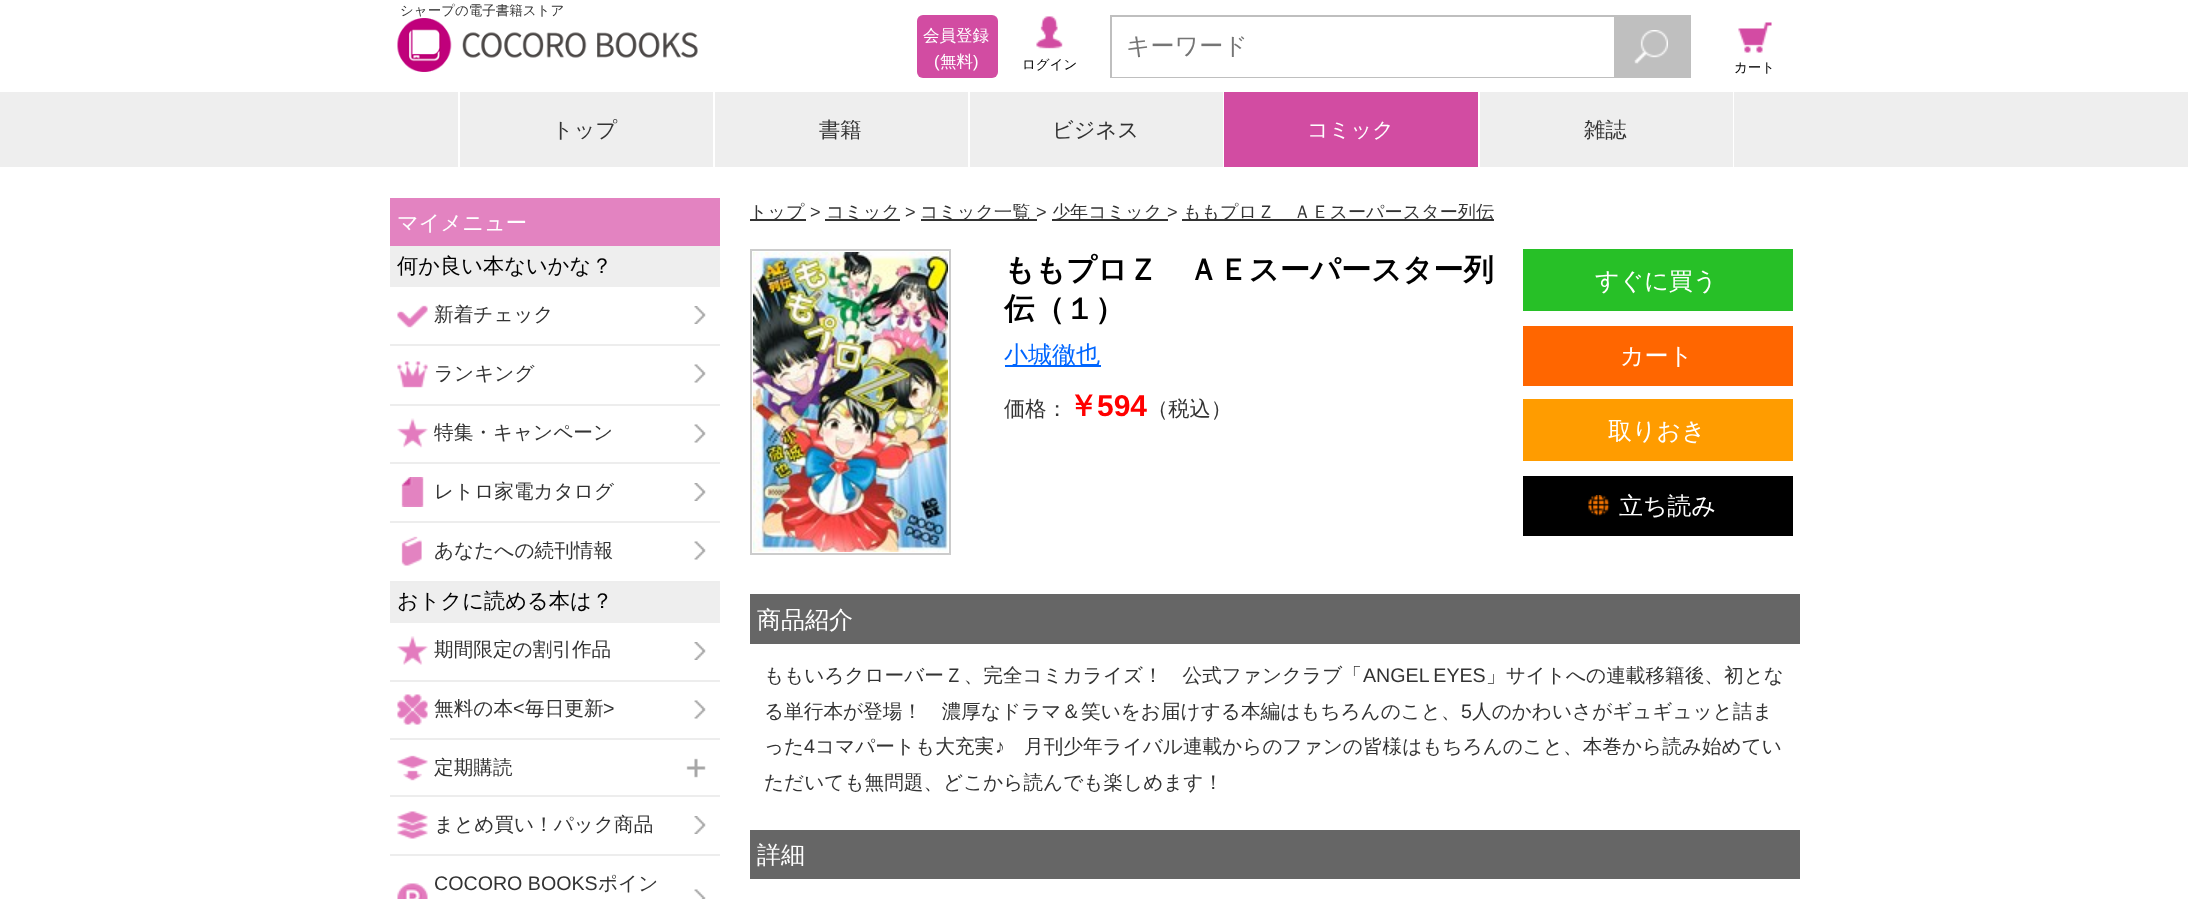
<!DOCTYPE html>
<meta charset="utf-8">
<style>body { margin: 0 } canvas { display: block }</style>
<canvas id="canvas" width="2188" height="899"></canvas>
<img id="img1" src="images/1.png" hidden>
<img id="img2" src="images/2.png" hidden>
<img id="img3" src="images/3.png" hidden>
<img id="img4" src="images/4.png" hidden>
<img id="img5" src="images/5.png" hidden>
<img id="img6" src="images/6.png" hidden>
<img id="img7" src="images/7.png" hidden>
<img id="img8" src="images/8.png" hidden>
<img id="img9" src="images/9.png" hidden>
<img id="img10" src="images/10.png" hidden>
<img id="img11" src="images/11.png" hidden>
<img id="img12" src="images/12.png" hidden>
<img id="img13" src="images/13.png" hidden>
<img id="img14" src="images/14.png" hidden>
<img id="img15" src="images/15.png" hidden>
<img id="img16" src="images/16.png" hidden>
<img id="img17" src="images/17.png" hidden>
<img id="img18" src="images/18.png" hidden>
<img id="img19" src="images/19.png" hidden>
<img id="img20" src="images/20.png" hidden>
<script>
window.onload = function () {
    const canvas = document.getElementById('canvas');
    const context = canvas.getContext('2d');
    context.miterLimit = 4;
    context.fontKerning = 'normal';

    context.fillStyle = 'rgb(255, 255, 255)';
    context.fillRect(0, 0, 2188, 899);
    context.drawImage(document.getElementById('img1'), 397, 18, 301, 54);
    context.fillStyle = 'rgb(210, 76, 162)';
    context.beginPath();
    context.roundRect(917, 15, 81, 63, 6);
    context.fill();
    context.drawImage(document.getElementById('img2'), 1036, 16, 27, 33);
    context.strokeStyle = 'rgb(191, 191, 191)';
    context.lineWidth = 2;
    context.strokeRect(1111, 16, 579, 61);
    context.fillStyle = 'rgb(255, 255, 255)';
    context.fillRect(1112, 76, 502, 1);
    context.fillStyle = 'rgb(191, 191, 191)';
    context.fillRect(1614, 17, 75, 59);
    context.drawImage(document.getElementById('img3'), 1634, 30, 34, 34);
    context.drawImage(document.getElementById('img4'), 1738, 22, 34, 31);
    context.fillStyle = 'rgb(238, 238, 238)';
    context.fillRect(0, 92, 2188, 75);
    context.fillStyle = 'rgb(255, 255, 255)';
    context.fillRect(458, 92, 2, 75);
    context.fillRect(713, 92, 2, 75);
    context.fillRect(968, 92, 2, 75);
    context.fillRect(1223, 92, 1, 75);
    context.fillStyle = 'rgb(210, 76, 162)';
    context.fillRect(1224, 92, 254, 75);
    context.fillStyle = 'rgb(255, 255, 255)';
    context.fillRect(1478, 92, 2, 75);
    context.fillRect(1733, 92, 1, 75);
    context.fillStyle = 'rgb(227, 131, 193)';
    context.fillRect(390, 198, 330, 48);
    context.fillStyle = 'rgb(238, 238, 238)';
    context.fillRect(390, 246, 330, 41);
    context.fillStyle = 'rgb(237, 237, 237)';
    context.fillRect(390, 344, 330, 2);
    context.drawImage(document.getElementById('img5'), 397, 305, 31, 23);
    context.drawImage(document.getElementById('img6'), 694, 306, 12, 18);
    context.fillRect(390, 404, 330, 2);
    context.drawImage(document.getElementById('img7'), 397, 361, 31, 27);
    context.drawImage(document.getElementById('img8'), 694, 364, 12, 19);
    context.fillRect(390, 462, 330, 2);
    context.drawImage(document.getElementById('img9'), 397, 418, 31, 30);
    context.drawImage(document.getElementById('img8'), 694, 424, 12, 19);
    context.fillRect(390, 521, 330, 2);
    context.drawImage(document.getElementById('img10'), 401, 477, 23, 30);
    context.drawImage(document.getElementById('img6'), 694, 483, 12, 18);
    context.fillRect(390, 581, 330, 2);
    context.drawImage(document.getElementById('img11'), 401, 536, 21, 30);
    context.drawImage(document.getElementById('img8'), 694, 541, 12, 19);
    context.fillStyle = 'rgb(238, 238, 238)';
    context.fillRect(390, 583, 330, 40);
    context.fillStyle = 'rgb(237, 237, 237)';
    context.fillRect(390, 680, 330, 2);
    context.drawImage(document.getElementById('img12'), 397, 636, 31, 29);
    context.drawImage(document.getElementById('img6'), 694, 642, 12, 18);
    context.fillRect(390, 738, 330, 2);
    context.drawImage(document.getElementById('img13'), 397, 694, 31, 31);
    context.drawImage(document.getElementById('img8'), 694, 700, 12, 19);
    context.drawImage(document.getElementById('img14'), 686, 758, 20, 20);
    context.fillRect(390, 795, 330, 2);
    context.drawImage(document.getElementById('img15'), 397, 755, 31, 26);
    context.fillRect(390, 854, 330, 2);
    context.drawImage(document.getElementById('img16'), 397, 811, 31, 28);
    context.drawImage(document.getElementById('img6'), 694, 816, 12, 18);
    context.drawImage(document.getElementById('img17'), 397, 883, 31, 16);
    context.drawImage(document.getElementById('img18'), 694, 889, 12, 10);
    context.fillStyle = 'rgb(51, 51, 51)';
    context.fillRect(750, 219, 56, 2);
    context.fillRect(825, 219, 75, 2);
    context.fillRect(921, 219, 116, 2);
    context.fillRect(1052, 219, 116, 2);
    context.fillRect(1182, 219, 312, 2);
    context.strokeStyle = 'rgb(204, 204, 204)';
    context.strokeRect(751, 250, 199, 304);
    context.drawImage(document.getElementById('img19'), 753, 252, 195, 300);
    context.fillStyle = 'rgb(0, 102, 255)';
    context.fillRect(1005, 365, 96, 2);
    context.fillStyle = 'rgb(39, 192, 39)';
    context.fillRect(1523, 249, 270, 62);
    context.fillStyle = 'rgb(255, 102, 0)';
    context.fillRect(1523, 326, 270, 60);
    context.fillStyle = 'rgb(255, 156, 0)';
    context.fillRect(1523, 399, 270, 62);
    context.fillStyle = 'rgb(0, 0, 0)';
    context.fillRect(1523, 476, 270, 60);
    context.drawImage(document.getElementById('img20'), 1588, 495, 22, 21);
    context.fillStyle = 'rgb(102, 102, 102)';
    context.fillRect(750, 594, 1050, 50);
    context.fillRect(750, 830, 1050, 49);
    context.font = '500 13.5px WenQuanYi Zen Hei';
    context.fillStyle = 'rgb(51, 51, 51)';
    context.fillText('シャープの電子書籍ストア', 400, 15);
    context.font = '500 16.5px WenQuanYi Zen Hei';
    context.fillStyle = 'rgb(255, 255, 255)';
    context.fillText('会員登録', 923, 41);
    context.font = '16.5px Liberation Sans';
    context.fillText('(', 934, 67);
    context.font = '500 16.5px WenQuanYi Zen Hei';
    context.fillText('無料', 940, 67);
    context.font = '16.5px Liberation Sans';
    context.fillText(')', 973, 67);
    context.font = '500 13.5px WenQuanYi Zen Hei';
    context.fillStyle = 'rgb(0, 0, 0)';
    context.fillText('ログイン', 1022, 69);
    context.font = '500 24px WenQuanYi Zen Hei';
    context.fillStyle = 'rgb(117, 117, 117)';
    context.fillText('キーワード', 1126, 54);
    context.font = '500 13.5px WenQuanYi Zen Hei';
    context.fillStyle = 'rgb(0, 0, 0)';
    context.fillText('カート', 1734, 72);
    context.font = '500 21.25px WenQuanYi Zen Hei';
    context.fillStyle = 'rgb(51, 51, 51)';
    context.fillText('トップ', 552, 137);
    context.fillText('書籍', 819, 137);
    context.fillText('ビジネス', 1052, 137);
    context.fillStyle = 'rgb(255, 255, 255)';
    context.fillText('コミック', 1307, 137);
    context.fillStyle = 'rgb(51, 51, 51)';
    context.fillText('雑誌', 1584, 137);
    context.fillStyle = 'rgb(255, 255, 255)';
    context.fillText('マイメニュー', 397, 230);
    context.fillStyle = 'rgb(0, 0, 0)';
    context.fillText('何か良い本ないかな？', 397, 273);
    context.font = '500 19.65px WenQuanYi Zen Hei';
    context.fillStyle = 'rgb(51, 51, 51)';
    context.fillText('新着チェック', 434, 321);
    context.fillText('ランキング', 434, 380);
    context.fillText('特集・キャンペーン', 434, 439);
    context.fillText('レトロ家電カタログ', 434, 498);
    context.fillText('あなたへの続刊情報', 434, 557);
    context.font = '500 21.25px WenQuanYi Zen Hei';
    context.fillStyle = 'rgb(0, 0, 0)';
    context.fillText('おトクに読める本は？', 397, 608);
    context.font = '500 19.65px WenQuanYi Zen Hei';
    context.fillStyle = 'rgb(51, 51, 51)';
    context.fillText('期間限定の割引作品', 434, 656);
    context.fillText('無料の本', 434, 715);
    context.font = '19.65px Liberation Sans';
    context.fillText('<', 513, 715);
    context.font = '500 19.65px WenQuanYi Zen Hei';
    context.fillText('毎日更新', 525, 715);
    context.font = '19.65px Liberation Sans';
    context.fillText('>', 603, 715);
    context.font = '500 19.65px WenQuanYi Zen Hei';
    context.fillText('定期購読', 434, 774);
    context.fillText('まとめ買い！パック商品', 434, 831);
    context.font = '19.65px Liberation Sans';
    context.fillText('COCORO BOOKS', 434, 890);
    context.font = '500 19.65px WenQuanYi Zen Hei';
    context.fillText('ポイン', 598, 890);
    context.font = '500 18.1px WenQuanYi Zen Hei';
    context.fillText('トップ', 749, 218);
    context.font = '18.1px Liberation Sans';
    context.fillText('>', 810, 218);
    context.font = '500 18.1px WenQuanYi Zen Hei';
    context.fillText('コミック', 826, 218);
    context.font = '18.1px Liberation Sans';
    context.fillText('>', 905, 218);
    context.font = '500 18.1px WenQuanYi Zen Hei';
    context.fillText('コミック一覧', 920, 218);
    context.font = '18.1px Liberation Sans';
    context.fillText('>', 1036, 218);
    context.font = '500 18.1px WenQuanYi Zen Hei';
    context.fillText('少年コミック', 1052, 218);
    context.font = '18.1px Liberation Sans';
    context.fillText('>', 1167, 218);
    context.font = '500 18.1px WenQuanYi Zen Hei';
    context.fillText('ももプロＺ　ＡＥスーパースター列伝', 1183, 218);
    context.font = 'bold 30.25px WenQuanYi Zen Hei';
    context.fillStyle = 'rgb(0, 0, 0)';
    context.fillText('ももプロＺ　ＡＥスーパースター列', 1004, 280);
    context.fillText('伝（１）', 1004, 319);
    context.font = '500 24px WenQuanYi Zen Hei';
    context.fillStyle = 'rgb(0, 102, 255)';
    context.fillText('小城徹也', 1004, 363);
    context.font = '500 21.25px WenQuanYi Zen Hei';
    context.fillStyle = 'rgb(51, 51, 51)';
    context.fillText('価格：', 1004, 416);
    context.font = 'bold 30px WenQuanYi Zen Hei';
    context.fillStyle = 'rgb(255, 0, 0)';
    context.fillText('￥', 1068, 416);
    context.font = 'bold 30px Liberation Sans';
    context.fillText('594', 1097, 416);
    context.font = '500 21.25px WenQuanYi Zen Hei';
    context.fillStyle = 'rgb(51, 51, 51)';
    context.fillText('（税込）', 1147, 416);
    context.font = '500 24px WenQuanYi Zen Hei';
    context.fillStyle = 'rgb(255, 255, 255)';
    context.fillText('すぐに買う', 1595, 289);
    context.fillText('カート', 1620, 364);
    context.fillText('取りおき', 1608, 439);
    context.fillText('立ち読み', 1619, 514);
    context.fillText('商品紹介', 757, 628);
    context.font = '500 19.65px WenQuanYi Zen Hei';
    context.fillStyle = 'rgb(51, 51, 51)';
    context.fillText('ももいろクローバーＺ、完全コミカライズ！　公式ファンクラブ「', 764, 682);
    context.wordSpacing = '-1px';
    context.font = '19.65px Liberation Sans';
    context.fillText('ANGEL EYES', 1363, 682);
    context.wordSpacing = '0px';
    context.font = '500 19.65px WenQuanYi Zen Hei';
    context.fillText('」サイトへの連載移籍後、初とな', 1486, 682);
    context.fillText('る単行本が登場！　濃厚なドラマ＆笑いをお届けする本編はもちろんのこと、', 764, 718);
    context.font = '19.65px Liberation Sans';
    context.fillText('5', 1461, 718);
    context.font = '500 19.65px WenQuanYi Zen Hei';
    context.fillText('人のかわいさがギュギュッと詰ま', 1472, 718);
    context.fillText('った', 764, 753);
    context.font = '19.65px Liberation Sans';
    context.fillText('4', 804, 753);
    context.font = '500 19.65px WenQuanYi Zen Hei';
    context.fillText('コマパートも大充実', 815, 753);
    context.font = '19.65px Liberation Sans';
    context.fillText('♪', 995, 753);
    context.font = '500 19.65px WenQuanYi Zen Hei';
    context.fillText('月刊少年ライバル連載からのファンの皆様はもちろんのこと、本巻から読み始めてい', 1024, 753);
    context.fillText('ただいても無問題、どこから読んでも楽しめます！', 764, 789);
    context.font = '500 24px WenQuanYi Zen Hei';
    context.fillStyle = 'rgb(255, 255, 255)';
    context.fillText('詳細', 757, 863);
};
</script>
